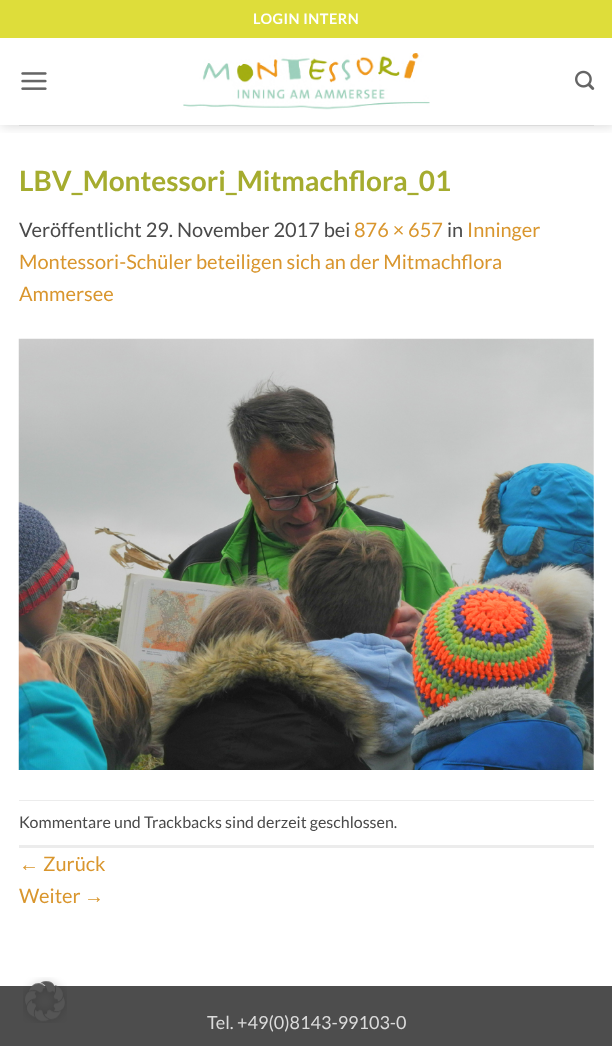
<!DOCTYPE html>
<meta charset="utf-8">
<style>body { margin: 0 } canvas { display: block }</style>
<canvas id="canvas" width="612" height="1046"></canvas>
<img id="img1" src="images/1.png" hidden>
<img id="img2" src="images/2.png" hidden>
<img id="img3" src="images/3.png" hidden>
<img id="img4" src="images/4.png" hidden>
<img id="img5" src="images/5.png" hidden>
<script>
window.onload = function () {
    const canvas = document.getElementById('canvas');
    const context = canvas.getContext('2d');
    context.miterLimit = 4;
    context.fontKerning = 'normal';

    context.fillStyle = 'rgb(255, 255, 255)';
    context.fillRect(0, 0, 612, 1046);
    context.save();
    context.beginPath();
    context.rect(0, 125, 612, 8);
    context.clip();
    context.fillStyle = 'rgba(0, 0, 0, 0.15)';
    context.filter = 'blur(6px)';
    context.beginPath();
    context.rect(1, 1, 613, 125);
    context.fill();
    context.filter = 'none';
    context.restore();
    context.fillStyle = 'rgb(222, 221, 58)';
    context.fillRect(0, 0, 612, 38);
    context.drawImage(document.getElementById('img1'), 21, 72, 26, 18);
    context.drawImage(document.getElementById('img2'), 183, 53, 247, 57);
    context.drawImage(document.getElementById('img3'), 575, 70, 20, 20);
    context.fillStyle = 'rgb(219, 219, 219)';
    context.fillRect(19, 125, 575, 1);
    context.drawImage(document.getElementById('img4'), 18, 338, 576, 432);
    context.fillStyle = 'rgb(236, 236, 236)';
    context.fillRect(19, 800, 575, 1);
    context.fillRect(19, 845, 575, 3);
    context.fillStyle = 'rgb(77, 77, 77)';
    context.fillRect(0, 986, 612, 60);
    context.drawImage(document.getElementById('img5'), 23, 977, 44, 46);
    context.letterSpacing = '0.5px';
    context.font = 'bold 14.5px Lato';
    context.fillStyle = 'rgb(255, 255, 255)';
    context.fillText('LOGIN INTERN', 253, 24);
    context.letterSpacing = '0px';
    context.font = 'bold 28px Lato';
    context.fillStyle = 'rgb(165, 172, 47)';
    context.fillText('LBV_Montessori_Mitmachflora_01', 19, 191);
    context.font = '20px Lato';
    context.fillStyle = 'rgb(74, 74, 74)';
    context.fillText('Veröffentlicht 29. November 2017 bei', 19, 237);
    context.fillStyle = 'rgb(217, 150, 46)';
    context.fillText('876 × 657', 354, 237);
    context.fillStyle = 'rgb(74, 74, 74)';
    context.fillText('in', 447, 237);
    context.fillStyle = 'rgb(217, 150, 46)';
    context.fillText('Inninger', 467, 237);
    context.fillText('Montessori-Schüler beteiligen sich an der Mitmachflora', 19, 269);
    context.fillText('Ammersee', 19, 301);
    context.font = '16px Lato';
    context.fillStyle = 'rgb(74, 74, 74)';
    context.fillText('Kommentare und Trackbacks sind derzeit geschlossen.', 19, 828);
    context.font = '20px Liberation Sans';
    context.fillStyle = 'rgb(217, 150, 46)';
    context.fillText('←', 19, 871);
    context.font = '20px Lato';
    context.fillText('Zurück', 43, 871);
    context.fillText('Weiter', 19, 903);
    context.font = '20px Liberation Sans';
    context.fillText('→', 84, 903);
    context.font = '18px Lato';
    context.fillStyle = 'rgb(219, 219, 219)';
    context.fillText('Tel. +49(0)8143-99103-0', 207, 1029);
};
</script>
